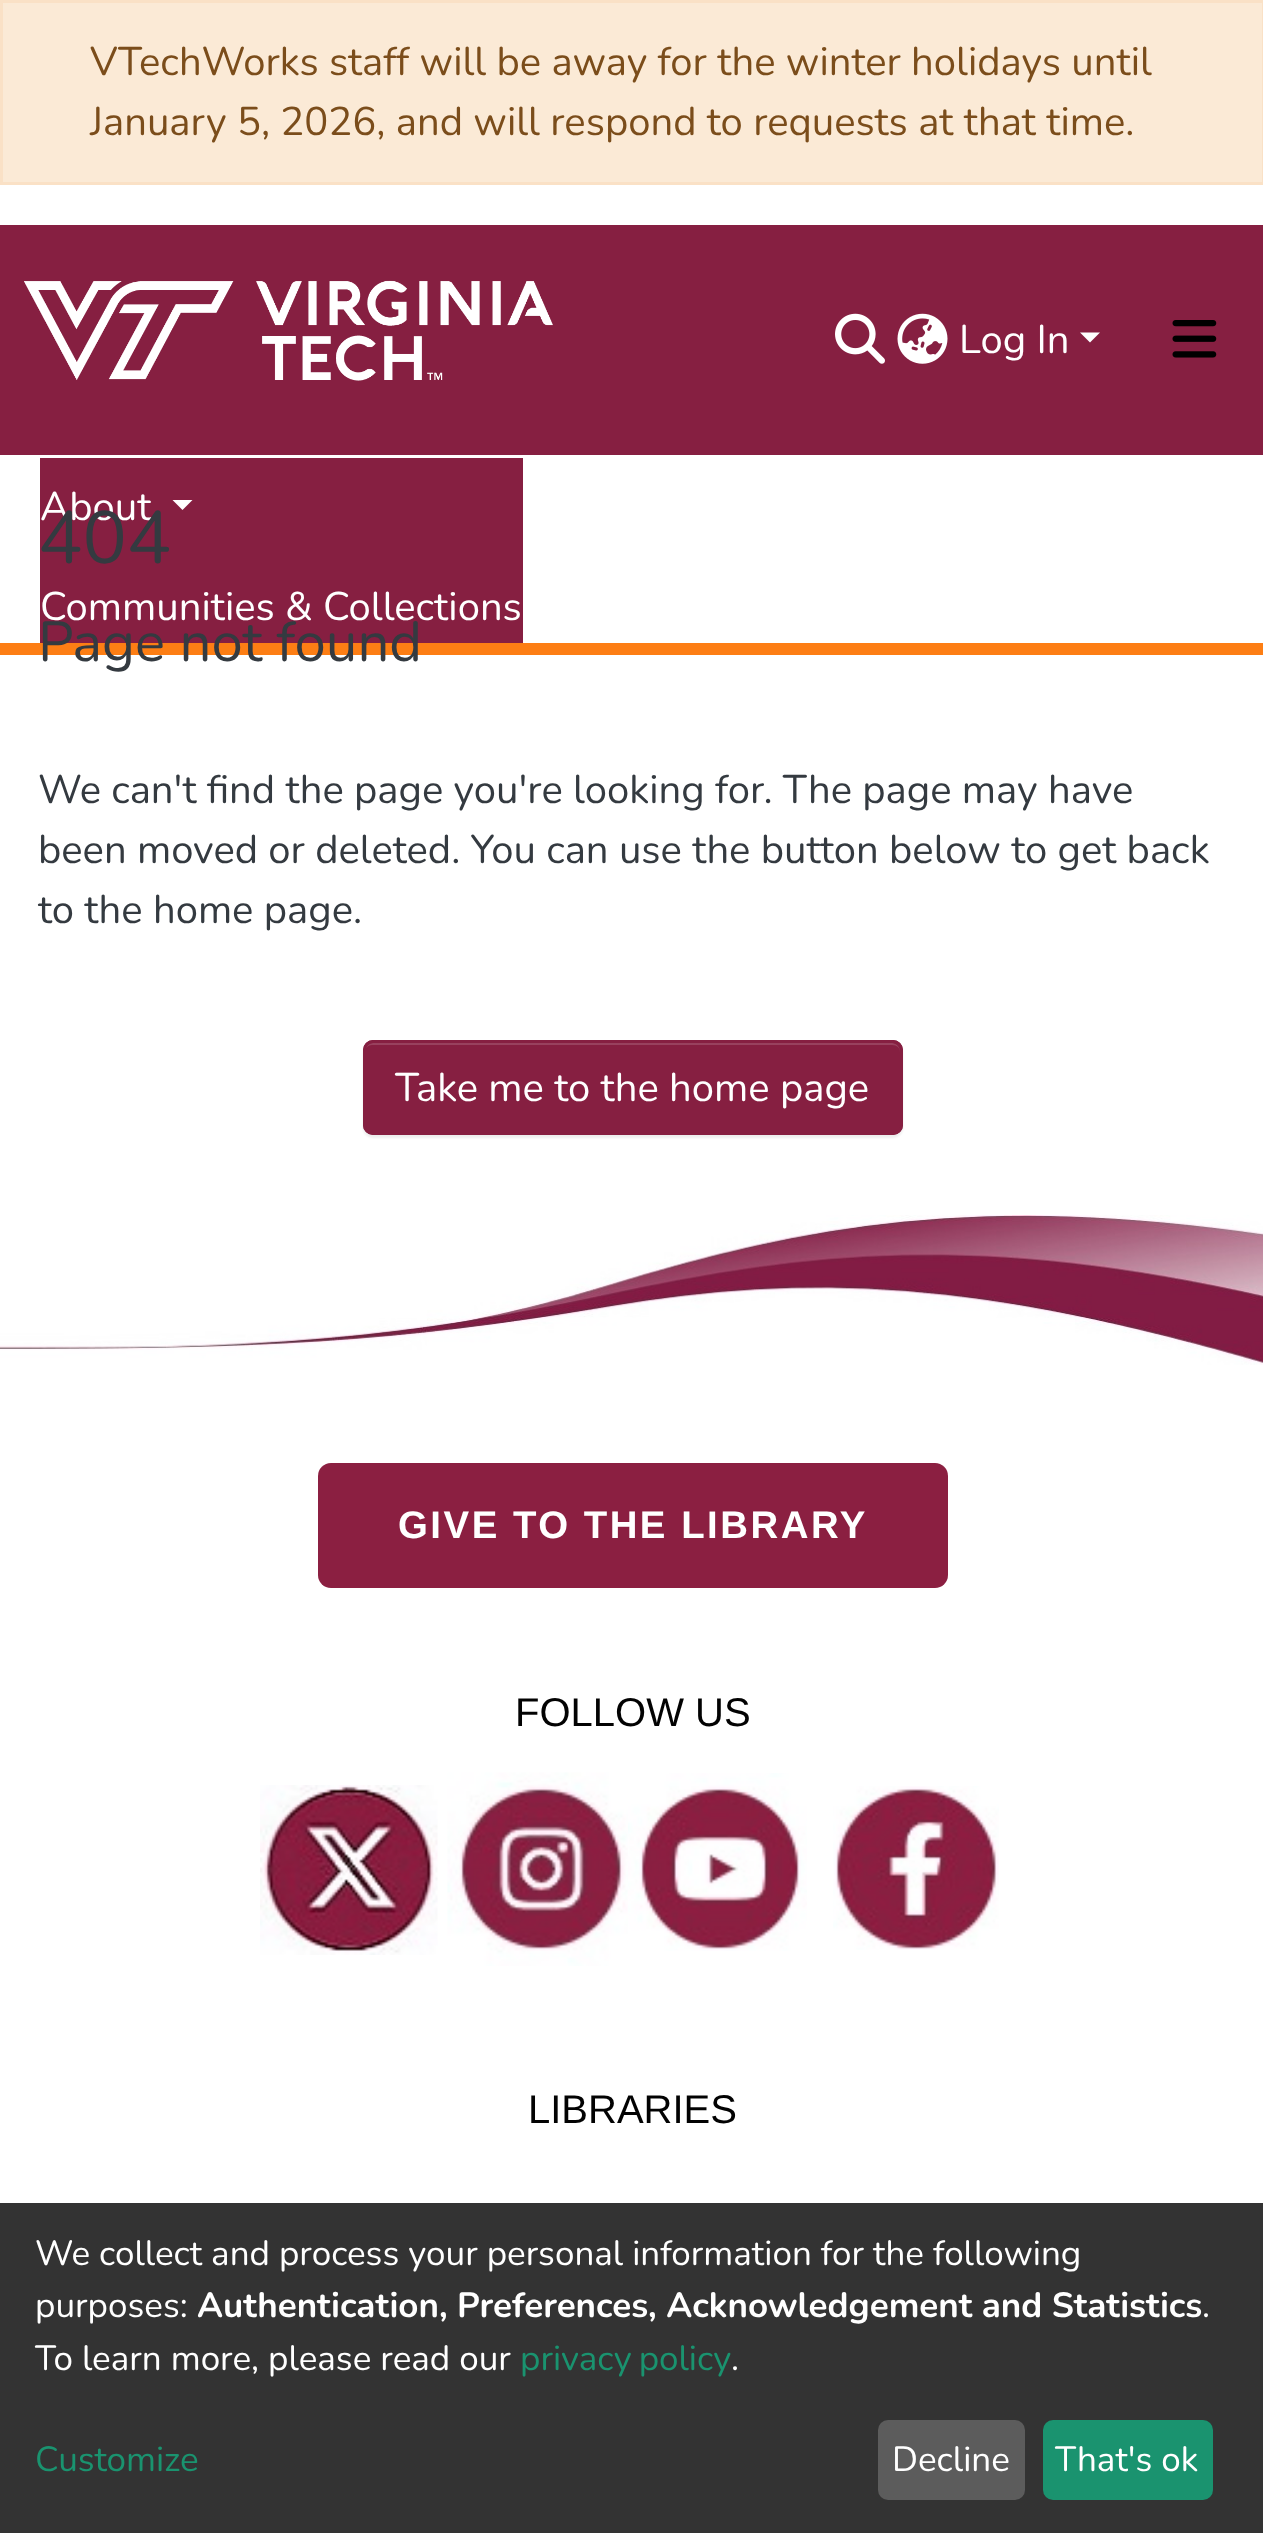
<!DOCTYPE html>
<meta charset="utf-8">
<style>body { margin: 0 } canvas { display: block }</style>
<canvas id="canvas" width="1263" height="2533"></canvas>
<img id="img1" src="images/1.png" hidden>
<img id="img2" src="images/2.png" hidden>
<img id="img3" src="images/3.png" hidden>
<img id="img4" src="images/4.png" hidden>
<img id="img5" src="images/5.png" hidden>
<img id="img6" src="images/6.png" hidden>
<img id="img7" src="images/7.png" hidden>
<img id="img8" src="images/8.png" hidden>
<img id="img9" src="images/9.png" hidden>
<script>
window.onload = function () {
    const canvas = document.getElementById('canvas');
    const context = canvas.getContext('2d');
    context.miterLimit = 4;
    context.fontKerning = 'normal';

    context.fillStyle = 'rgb(255, 255, 255)';
    context.fillRect(0, 0, 1263, 2533);
    context.fillStyle = 'rgb(251, 234, 214)';
    context.beginPath();
    context.rect(1.5, 1.5, 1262, 182);
    context.fill();
    context.strokeStyle = 'rgb(250, 225, 198)';
    context.lineWidth = 3;
    context.stroke();
    context.fillStyle = 'rgb(134, 31, 65)';
    context.fillRect(0, 225, 1263, 230);
    context.drawImage(document.getElementById('img1'), 24, 280, 529, 101);
    context.drawImage(document.getElementById('img2'), 835, 313, 50, 51);
    context.drawImage(document.getElementById('img3'), 897, 313, 51, 51);
    context.fillStyle = 'rgb(255, 255, 255)';
    context.beginPath();
    context.moveTo(1080, 332.5);
    context.lineTo(1100, 332.5);
    context.lineTo(1090, 342.5);
    context.closePath();
    context.fill();
    context.drawImage(document.getElementById('img4'), 1172, 320, 45, 38);
    context.fillStyle = 'rgb(253, 126, 20)';
    context.fillRect(0, 643, 1263, 12);
    context.fillStyle = 'rgb(134, 31, 65)';
    context.fillRect(40, 458, 483, 185);
    context.fillStyle = 'rgb(255, 255, 255)';
    context.beginPath();
    context.moveTo(172.5, 500);
    context.lineTo(192.5, 500);
    context.lineTo(182.5, 510);
    context.closePath();
    context.fill();
    context.fillStyle = 'rgba(0, 0, 0, 0.07)';
    context.filter = 'blur(1px)';
    context.beginPath();
    context.roundRect(363, 1043, 540, 95, 10);
    context.fill();
    context.filter = 'none';
    context.fillStyle = 'rgb(134, 31, 65)';
    context.beginPath();
    context.roundRect(363, 1040, 540, 95, 10);
    context.fill();
    context.fillStyle = 'rgb(152, 65, 94)';
    context.beginPath();
    context.moveTo(372, 1045);
    context.lineTo(892, 1045);
    context.bezierCurveTo(897, 1045, 900, 1048, 900, 1052);
    context.lineTo(900, 1051);
    context.bezierCurveTo(900, 1047, 896, 1043, 892, 1043);
    context.lineTo(373, 1043);
    context.bezierCurveTo(369, 1043, 365, 1047, 365, 1051);
    context.lineTo(365, 1052);
    context.bezierCurveTo(365, 1048, 368, 1045, 372, 1045);
    context.closePath();
    context.fill();
    context.beginPath();
    context.roundRect(364.5, 1041.5, 537, 92, 8.5);
    context.strokeStyle = 'rgb(134, 31, 65)';
    context.stroke();
    context.drawImage(document.getElementById('img5'), 0, 1215, 1263, 150);
    context.fillStyle = 'rgb(139, 31, 65)';
    context.beginPath();
    context.roundRect(318, 1463, 630, 125, 13);
    context.fill();
    context.drawImage(document.getElementById('img6'), 260, 1785, 178, 170);
    context.drawImage(document.getElementById('img7'), 447, 1772, 183, 194);
    context.drawImage(document.getElementById('img8'), 628, 1773, 179, 178);
    context.drawImage(document.getElementById('img9'), 833, 1786, 166, 164);
    context.fillStyle = 'rgb(51, 51, 51)';
    context.fillRect(0, 2203, 1263, 330);
    context.fillStyle = 'rgb(92, 92, 92)';
    context.beginPath();
    context.roundRect(878, 2420, 147, 80, 10);
    context.fill();
    context.fillStyle = 'rgb(26, 147, 111)';
    context.beginPath();
    context.roundRect(1043, 2420, 170, 80, 10);
    context.fill();
    context.font = '40px Nunito';
    context.fillStyle = 'rgb(123, 77, 27)';
    context.fillText('VTechWorks staff will be away for the winter holidays until', 90, 75);
    context.fillText('January 5, 2026, and will respond to requests at that time.', 90, 135);
    context.fillStyle = 'rgb(255, 255, 255)';
    context.fillText('Log In', 959, 353);
    context.fillText('About', 40, 520);
    context.fillText('Communities & Collections', 40, 620);
    context.font = '74px Nunito';
    context.fillStyle = 'rgb(52, 58, 64)';
    context.fillText('404', 38, 563);
    context.font = '56.25px Nunito';
    context.fillText('Page not found', 38, 661);
    context.font = '40px Nunito';
    context.fillText('We can\'t find the page you\'re looking for. The page may have', 38, 803);
    context.fillText('been moved or deleted. You can use the button below to get back', 38, 863);
    context.fillText('to the home page.', 38, 923);
    context.fillStyle = 'rgb(255, 255, 255)';
    context.fillText('Take me to the home page', 395, 1101);
    context.letterSpacing = '2.5px';
    context.font = 'bold 38.4px Liberation Sans';
    context.fillText('GIVE TO THE LIBRARY', 398, 1538);
    context.letterSpacing = '0px';
    context.font = '40px Liberation Sans';
    context.fillStyle = 'rgb(2, 2, 2)';
    context.fillText('FOLLOW US', 515, 1726);
    context.fillText('LIBRARIES', 528, 2123);
    context.font = '35px Nunito';
    context.fillStyle = 'rgb(255, 255, 255)';
    context.fillText('We collect and process your personal information for the following', 35, 2265);
    context.fillText('purposes:', 35, 2317);
    context.font = 'bold 35px Nunito';
    context.fillText('Authentication, Preferences, Acknowledgement and Statistics', 197, 2317);
    context.font = '35px Nunito';
    context.fillText('.', 1202, 2317);
    context.fillText('To learn more, please read our', 35, 2370);
    context.wordSpacing = '-2px';
    context.fillStyle = 'rgb(26, 147, 111)';
    context.fillText('privacy policy', 520, 2370);
    context.wordSpacing = '0px';
    context.fillStyle = 'rgb(255, 255, 255)';
    context.fillText('.', 731, 2370);
    context.fillStyle = 'rgb(26, 147, 111)';
    context.fillText('Customize', 35, 2471);
    context.fillStyle = 'rgb(255, 255, 255)';
    context.fillText('Decline', 892, 2471);
    context.fillText('That\'s ok', 1055, 2471);
};
</script>
